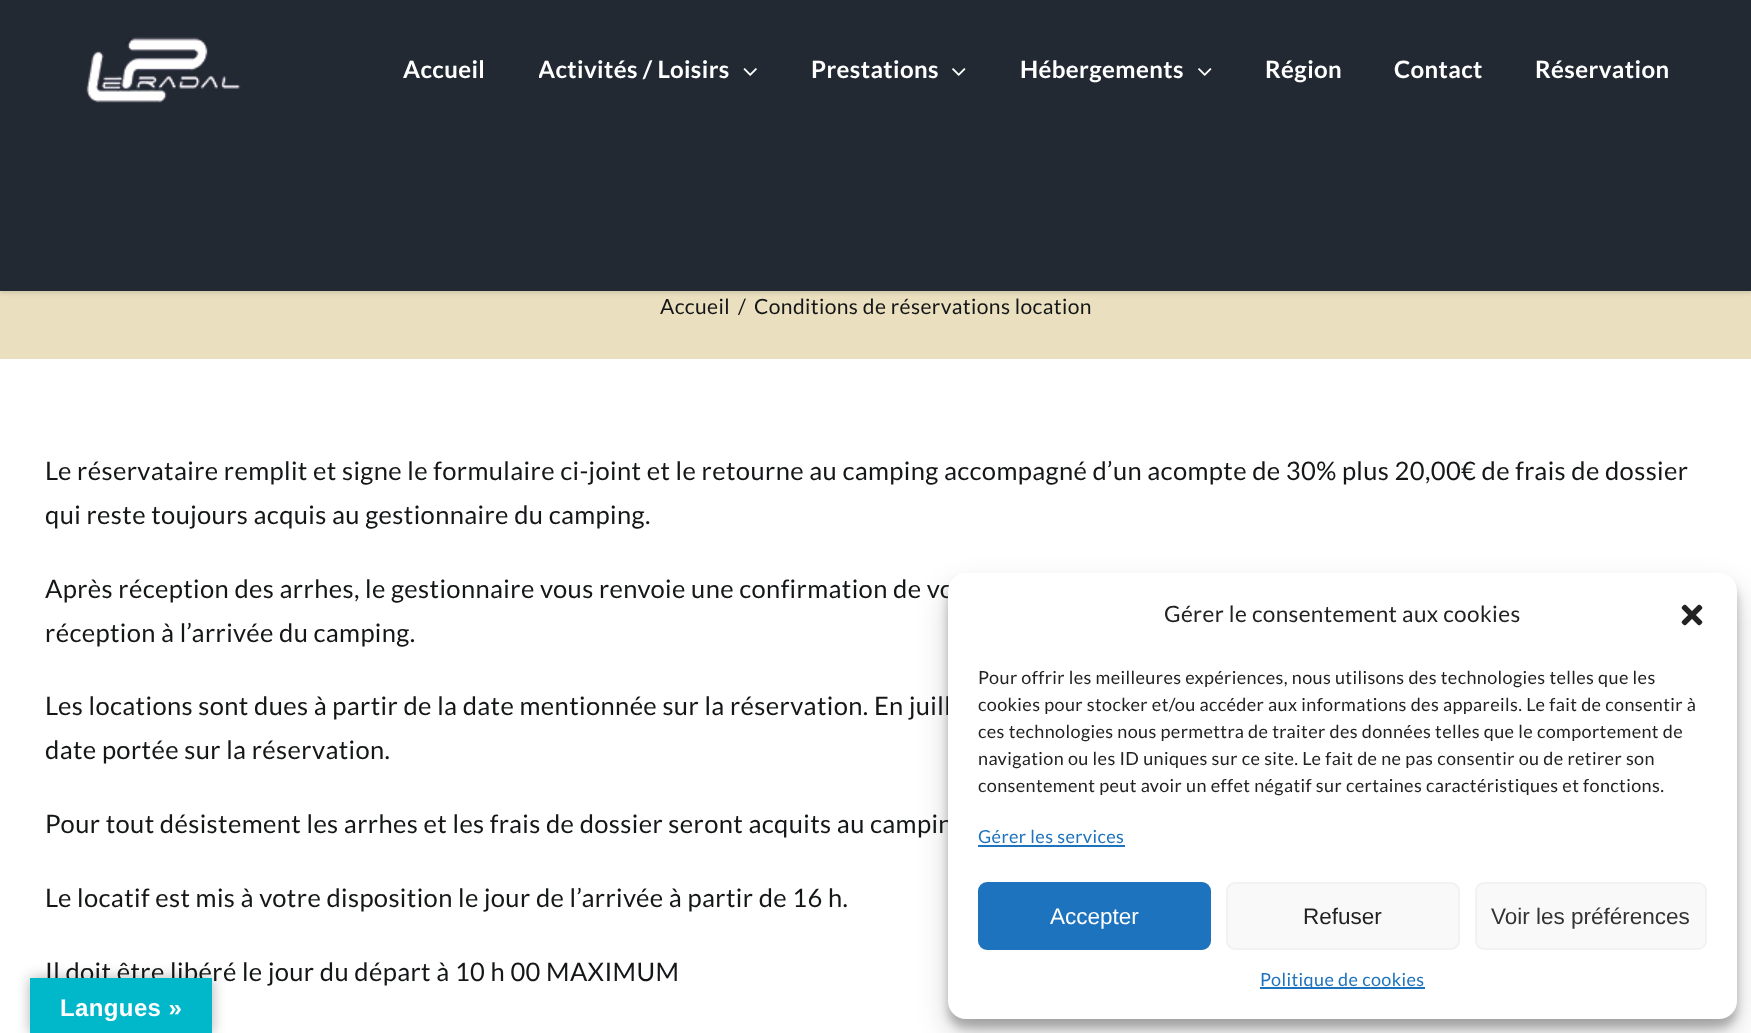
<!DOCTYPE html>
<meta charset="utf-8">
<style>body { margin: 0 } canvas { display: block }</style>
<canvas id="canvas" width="1751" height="1033"></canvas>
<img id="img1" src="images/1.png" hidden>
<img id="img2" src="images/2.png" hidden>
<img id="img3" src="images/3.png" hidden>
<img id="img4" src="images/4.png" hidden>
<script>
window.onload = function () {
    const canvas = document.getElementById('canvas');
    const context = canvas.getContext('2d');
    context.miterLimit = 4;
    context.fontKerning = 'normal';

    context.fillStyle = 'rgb(255, 255, 255)';
    context.fillRect(0, 0, 1751, 1033);
    context.fillStyle = 'rgb(234, 224, 192)';
    context.fillRect(0, 291, 1751, 68);
    context.fillStyle = 'rgba(0, 0, 0, 0.12)';
    context.filter = 'blur(2px)';
    context.beginPath();
    context.rect(0, 2, 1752, 291);
    context.fill();
    context.filter = 'none';
    context.fillStyle = 'rgb(34, 41, 51)';
    context.fillRect(0, 0, 1751, 291);
    context.drawImage(document.getElementById('img1'), 86, 37, 155, 66);
    context.drawImage(document.getElementById('img2'), 743, 68, 14, 8);
    context.drawImage(document.getElementById('img3'), 952, 68, 14, 8);
    context.drawImage(document.getElementById('img3'), 1198, 68, 14, 8);
    context.fillStyle = 'rgba(0, 0, 0, 0.23)';
    context.filter = 'blur(4.5px)';
    context.beginPath();
    context.roundRect(948, 582, 789, 446, 18);
    context.fill();
    context.filter = 'none';
    context.fillStyle = 'rgba(0, 0, 0, 0.19)';
    context.filter = 'blur(15px)';
    context.beginPath();
    context.roundRect(948, 588, 789, 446, 18);
    context.fill();
    context.filter = 'none';
    context.fillStyle = 'rgba(0, 0, 0, 0.3)';
    context.filter = 'blur(7px)';
    context.beginPath();
    context.rect(30, 978, 182, 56);
    context.fill();
    context.filter = 'none';
    context.letterSpacing = '0.4px';
    context.font = 'bold 24px Lato';
    context.fillStyle = 'rgb(255, 255, 255)';
    context.fillText('Accueil', 403, 78);
    context.save();
    context.beginPath();
    context.rect(539, 0, 271, 138);
    context.clip();
    context.fillText('Activités / Loisirs', 538, 78);
    context.restore();
    context.fillText('Prestations', 811, 78);
    context.fillText('Hébergements', 1020, 78);
    context.fillText('Région', 1265, 78);
    context.fillText('Contact', 1394, 78);
    context.fillText('Réservation', 1535, 78);
    context.letterSpacing = '0.38px';
    context.font = '21px Lato';
    context.fillStyle = 'rgb(20, 22, 23)';
    context.fillText('Accueil', 660, 314);
    context.fillText('/', 738, 314);
    context.fillText('Conditions de réservations location', 754, 314);
    context.font = '25.5px Lato';
    context.fillText('Le réservataire remplit et signe le formulaire ci-joint et le retourne au camping accompagné d’un acompte de 30% plus 20,00€ de frais de dossier', 45, 480);
    context.fillText('qui reste toujours acquis au gestionnaire du camping.', 45, 524);
    context.fillText('Après réception des arrhes, le gestionnaire vous renvoie une confirmation de vo', 45, 598);
    context.fillText('réception à l’arrivée du camping.', 45, 642);
    context.fillText('Les locations sont dues à partir de la date mentionnée sur la réservation. En juill', 45, 715);
    context.fillText('date portée sur la réservation.', 45, 759);
    context.fillText('Pour tout désistement les arrhes et les frais de dossier seront acquits au campin', 45, 833);
    context.fillText('Le locatif est mis à votre disposition le jour de l’arrivée à partir de 16 h.', 45, 907);
    context.fillText('Il doit être libéré le jour du départ à 10 h 00 MAXIMUM', 45, 981);
    context.fillStyle = 'rgb(255, 255, 255)';
    context.beginPath();
    context.roundRect(948, 573, 789, 446, 18);
    context.fill();
    context.font = '22.5px Lato';
    context.fillStyle = 'rgb(34, 34, 34)';
    context.fillText('Gérer le consentement aux cookies', 1164, 622);
    context.drawImage(document.getElementById('img4'), 1681, 604, 22, 22);
    context.font = '18px Lato';
    context.fillText('Pour offrir les meilleures expériences, nous utilisons des technologies telles que les', 978, 684);
    context.fillText('cookies pour stocker et/ou accéder aux informations des appareils. Le fait de consentir à', 978, 711);
    context.fillText('ces technologies nous permettra de traiter des données telles que le comportement de', 978, 738);
    context.fillText('navigation ou les ID uniques sur ce site. Le fait de ne pas consentir ou de retirer son', 978, 765);
    context.fillText('consentement peut avoir un effet négatif sur certaines caractéristiques et fonctions.', 978, 792);
    context.fillStyle = 'rgb(30, 115, 190)';
    context.fillText('Gérer les services', 978, 843);
    context.fillRect(978, 845, 147, 2);
    context.beginPath();
    context.roundRect(979, 883, 231, 66, 8);
    context.fill();
    context.strokeStyle = 'rgb(30, 115, 190)';
    context.lineWidth = 2;
    context.stroke();
    context.letterSpacing = '0px';
    context.font = '22.5px Liberation Sans';
    context.fillStyle = 'rgb(255, 255, 255)';
    context.fillText('Accepter', 1050, 924);
    context.fillStyle = 'rgb(249, 249, 249)';
    context.beginPath();
    context.roundRect(1227, 883, 232, 66, 8);
    context.fill();
    context.strokeStyle = 'rgb(242, 242, 242)';
    context.stroke();
    context.fillStyle = 'rgb(34, 34, 34)';
    context.fillText('Refuser', 1303, 924);
    context.fillStyle = 'rgb(249, 249, 249)';
    context.beginPath();
    context.roundRect(1476, 883, 230, 66, 8);
    context.fill();
    context.stroke();
    context.fillStyle = 'rgb(51, 51, 51)';
    context.fillText('Voir les préférences', 1491, 924);
    context.fillStyle = 'rgb(30, 115, 190)';
    context.fillRect(1260, 987, 165, 2);
    context.letterSpacing = '0.38px';
    context.font = '18px Lato';
    context.fillText('Politique de cookies', 1260, 986);
    context.fillStyle = 'rgb(0, 184, 202)';
    context.fillRect(30, 978, 182, 55);
    context.font = 'bold 24px Liberation Sans';
    context.fillStyle = 'rgb(255, 255, 255)';
    context.fillText('Langues »', 60, 1016);
};
</script>
